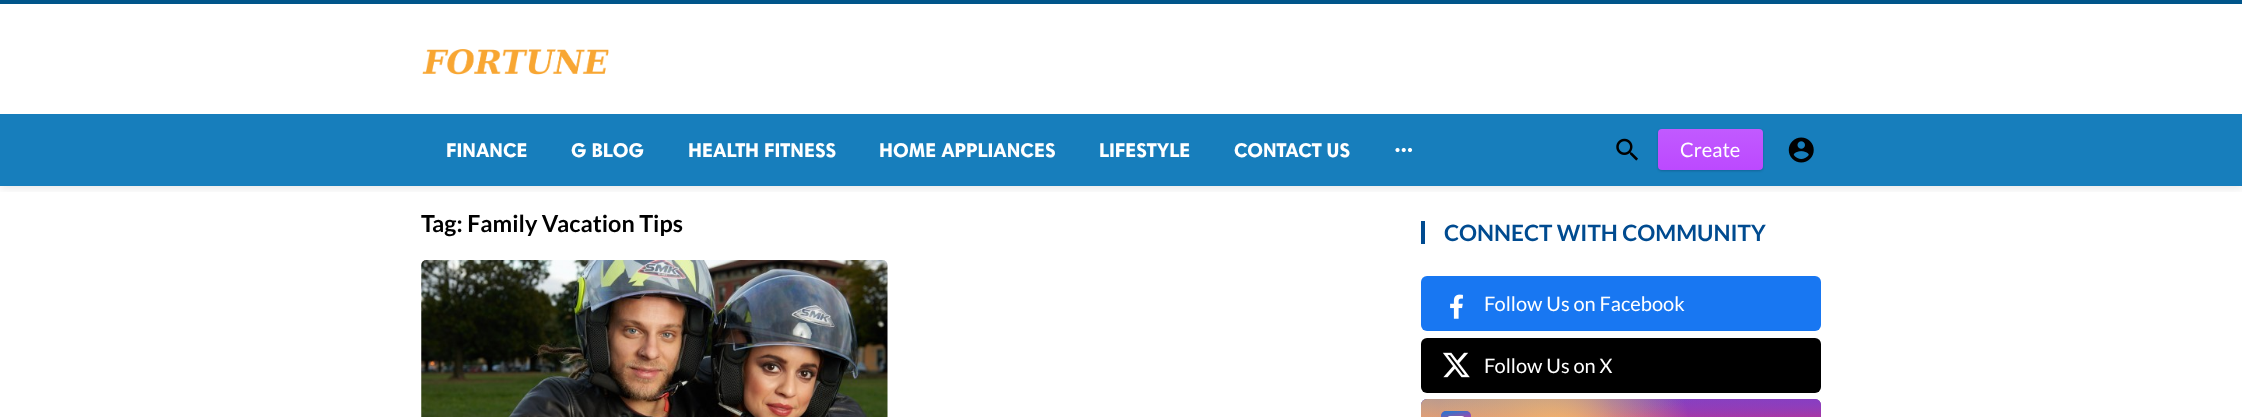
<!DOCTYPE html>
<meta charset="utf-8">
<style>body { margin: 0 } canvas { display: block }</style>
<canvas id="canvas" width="2242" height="417"></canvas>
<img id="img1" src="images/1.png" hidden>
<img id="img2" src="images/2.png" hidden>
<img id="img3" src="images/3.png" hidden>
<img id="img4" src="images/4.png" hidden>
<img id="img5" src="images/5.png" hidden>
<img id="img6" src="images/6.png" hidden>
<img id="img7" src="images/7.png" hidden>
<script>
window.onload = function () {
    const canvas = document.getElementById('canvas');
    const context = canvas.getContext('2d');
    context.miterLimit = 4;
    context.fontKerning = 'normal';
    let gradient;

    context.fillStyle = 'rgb(255, 255, 255)';
    context.fillRect(0, 0, 2242, 417);
    context.save();
    context.beginPath();
    context.rect(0, 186, 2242, 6);
    context.clip();
    context.fillStyle = 'rgba(0, 0, 0, 0.1)';
    context.filter = 'blur(5px)';
    context.beginPath();
    context.rect(0, 1, 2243, 187);
    context.fill();
    context.filter = 'none';
    context.restore();
    context.fillStyle = 'rgb(0, 85, 138)';
    context.fillRect(0, 0, 2242, 4);
    context.drawImage(document.getElementById('img1'), 422, 49, 187, 26);
    context.fillStyle = 'rgb(23, 126, 188)';
    context.fillRect(0, 114, 2242, 72);
    context.drawImage(document.getElementById('img2'), 1395, 147, 18, 6);
    context.drawImage(document.getElementById('img3'), 1616, 138, 22, 23);
    context.fillStyle = 'rgba(0, 0, 0, 0.2)';
    context.filter = 'blur(1px)';
    context.beginPath();
    context.roundRect(1658, 130, 105, 41, 4);
    context.fill();
    context.filter = 'none';
    gradient = context.createLinearGradient(1710, 129, 1710, 170);
    gradient.addColorStop(0, 'rgb(193, 90, 255)');
    gradient.addColorStop(1, 'rgb(188, 73, 255)');
    context.fillStyle = gradient;
    context.beginPath();
    context.roundRect(1658, 129, 105, 41, 4);
    context.fill();
    context.drawImage(document.getElementById('img4'), 1788, 137, 26, 26);
    context.drawImage(document.getElementById('img5'), 421, 260, 467, 157);
    context.fillStyle = 'rgb(0, 75, 144)';
    context.fillRect(1421, 221, 4, 23);
    context.fillStyle = 'rgb(24, 119, 242)';
    context.beginPath();
    context.roundRect(1421, 276, 400, 55, 6);
    context.fill();
    context.drawImage(document.getElementById('img6'), 1450, 294, 13, 25);
    context.fillStyle = 'rgb(0, 0, 0)';
    context.beginPath();
    context.roundRect(1421, 338, 400, 55, 6);
    context.fill();
    context.drawImage(document.getElementById('img7'), 1442, 352, 28, 26);
    gradient = context.createLinearGradient(1621, 399, 1621, 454);
    gradient.addColorStop(0, 'rgb(101, 89, 202)');
    gradient.addColorStop(0.3, 'rgb(188, 49, 143)');
    gradient.addColorStop(0.5, 'rgb(227, 63, 95)');
    gradient.addColorStop(0.7, 'rgb(247, 118, 56)');
    gradient.addColorStop(1, 'rgb(254, 198, 109)');
    context.fillStyle = gradient;
    context.beginPath();
    context.roundRect(1421, 399, 400, 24, 6);
    context.fill();
    gradient = context.createRadialGradient(1821, 3294.41, 0, 1821, 3294.41, 566);
    gradient.addColorStop(0, 'rgb(217, 49, 122)');
    gradient.addColorStop(1, 'rgba(217, 49, 122, 0)');
    context.fillStyle = gradient;
    context.beginPath();
    context.roundRect(1421, 399, 400, 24, 6);
    context.save();
    context.clip();
    context.scale(1, 78 / 566);
    context.fillRect(0, 0, 2242, 3026);
    context.restore();
    gradient = context.createRadialGradient(1661, 1414.32, 0, 1661, 1414.32, 339);
    gradient.addColorStop(0, 'rgb(137, 61, 194)');
    gradient.addColorStop(0.5, 'rgba(137, 61, 194, 0)');
    context.fillStyle = gradient;
    context.beginPath();
    context.rect(1516, 399, 303, 18);
    context.save();
    context.clip();
    context.scale(1, 93 / 339);
    context.fillRect(0, 0, 2242, 1521);
    context.restore();
    gradient = context.createRadialGradient(1821, 2895.31, 0, 1821, 2895.31, 566);
    gradient.addColorStop(0, 'rgb(137, 61, 194)');
    gradient.addColorStop(0.5, 'rgba(137, 61, 194, 0)');
    context.fillStyle = gradient;
    context.beginPath();
    context.roundRect(1421, 399, 400, 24, 6);
    context.save();
    context.clip();
    context.scale(1, 78 / 566);
    context.fillRect(0, 0, 2242, 3026);
    context.restore();
    gradient = context.createRadialGradient(1501, 1436.44, 0, 1501, 1436.44, 453);
    gradient.addColorStop(0, 'rgb(82, 88, 207)');
    gradient.addColorStop(0.5, 'rgba(82, 88, 207, 0)');
    context.fillStyle = gradient;
    context.beginPath();
    context.roundRect(1421, 399, 400, 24, 6);
    context.save();
    context.clip();
    context.scale(1, 117 / 453);
    context.fillRect(0, 0, 2242, 1615);
    context.restore();
    gradient = context.createRadialGradient(1421, 2246.49, 0, 1421, 2246.49, 566);
    gradient.addColorStop(0, 'rgb(82, 88, 207)');
    gradient.addColorStop(0.5, 'rgba(82, 88, 207, 0)');
    context.fillStyle = gradient;
    context.beginPath();
    context.roundRect(1421, 399, 400, 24, 6);
    context.save();
    context.clip();
    context.scale(1, 97 / 566);
    context.fillRect(0, 0, 2242, 2434);
    context.restore();
    gradient = context.createRadialGradient(1421, 476, 0, 1421, 476, 407);
    gradient.addColorStop(0, 'rgb(254, 197, 100)');
    gradient.addColorStop(0.5, 'rgba(254, 197, 100, 0)');
    context.fillStyle = gradient;
    context.beginPath();
    context.roundRect(1421, 399, 400, 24, 6);
    context.fill();
    gradient = context.createRadialGradient(1561, 448, 0, 1561, 448, 265);
    gradient.addColorStop(0, 'rgb(254, 197, 100)');
    gradient.addColorStop(0.5, 'rgba(254, 197, 100, 0)');
    context.fillStyle = gradient;
    context.fillRect(1440, 399, 247, 18);
    gradient = context.createRadialGradient(1453, 441, 0, 1453, 441, 30);
    gradient.addColorStop(0.1, 'rgb(255, 221, 85)');
    gradient.addColorStop(0.5, 'rgb(255, 84, 62)');
    gradient.addColorStop(1, 'rgb(200, 55, 171)');
    context.fillStyle = gradient;
    context.beginPath();
    context.roundRect(1441, 411, 30, 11, 5);
    context.fill();
    gradient = context.createLinearGradient(1441, 411, 1447, 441);
    gradient.addColorStop(0.1, 'rgb(55, 113, 200)');
    gradient.addColorStop(0.5, 'rgba(55, 113, 200, 0)');
    context.fillStyle = gradient;
    context.beginPath();
    context.roundRect(1441, 411, 30, 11, 5);
    context.fill();
    context.beginPath();
    context.roundRect(1447, 417, 18, 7, 5);
    context.strokeStyle = 'rgb(255, 255, 255)';
    context.lineWidth = 2;
    context.stroke();
    context.font = 'bold 20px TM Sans';
    context.fillStyle = 'rgb(255, 255, 255)';
    context.fillText('FINANCE', 446, 157);
    context.fillText('G BLOG', 571, 157);
    context.fillText('HEALTH FITNESS', 688, 157);
    context.fillText('HOME APPLIANCES', 879, 157);
    context.fillText('LIFESTYLE', 1099, 157);
    context.fillText('CONTACT US', 1234, 157);
    context.font = '20px Lato';
    context.fillText('Create', 1680, 157);
    context.font = 'bold 23.4px Lato';
    context.fillStyle = 'rgb(0, 0, 0)';
    context.fillText('Tag: Family Vacation Tips', 421, 232);
    context.font = 'bold 22.5px Lato';
    context.fillStyle = 'rgb(0, 75, 144)';
    context.fillText('CONNECT WITH COMMUNITY', 1444, 241);
    context.font = '20px Lato';
    context.fillStyle = 'rgb(255, 255, 255)';
    context.fillText('Follow Us on Facebook', 1484, 311);
    context.fillText('Follow Us on X', 1484, 373);
};
</script>
